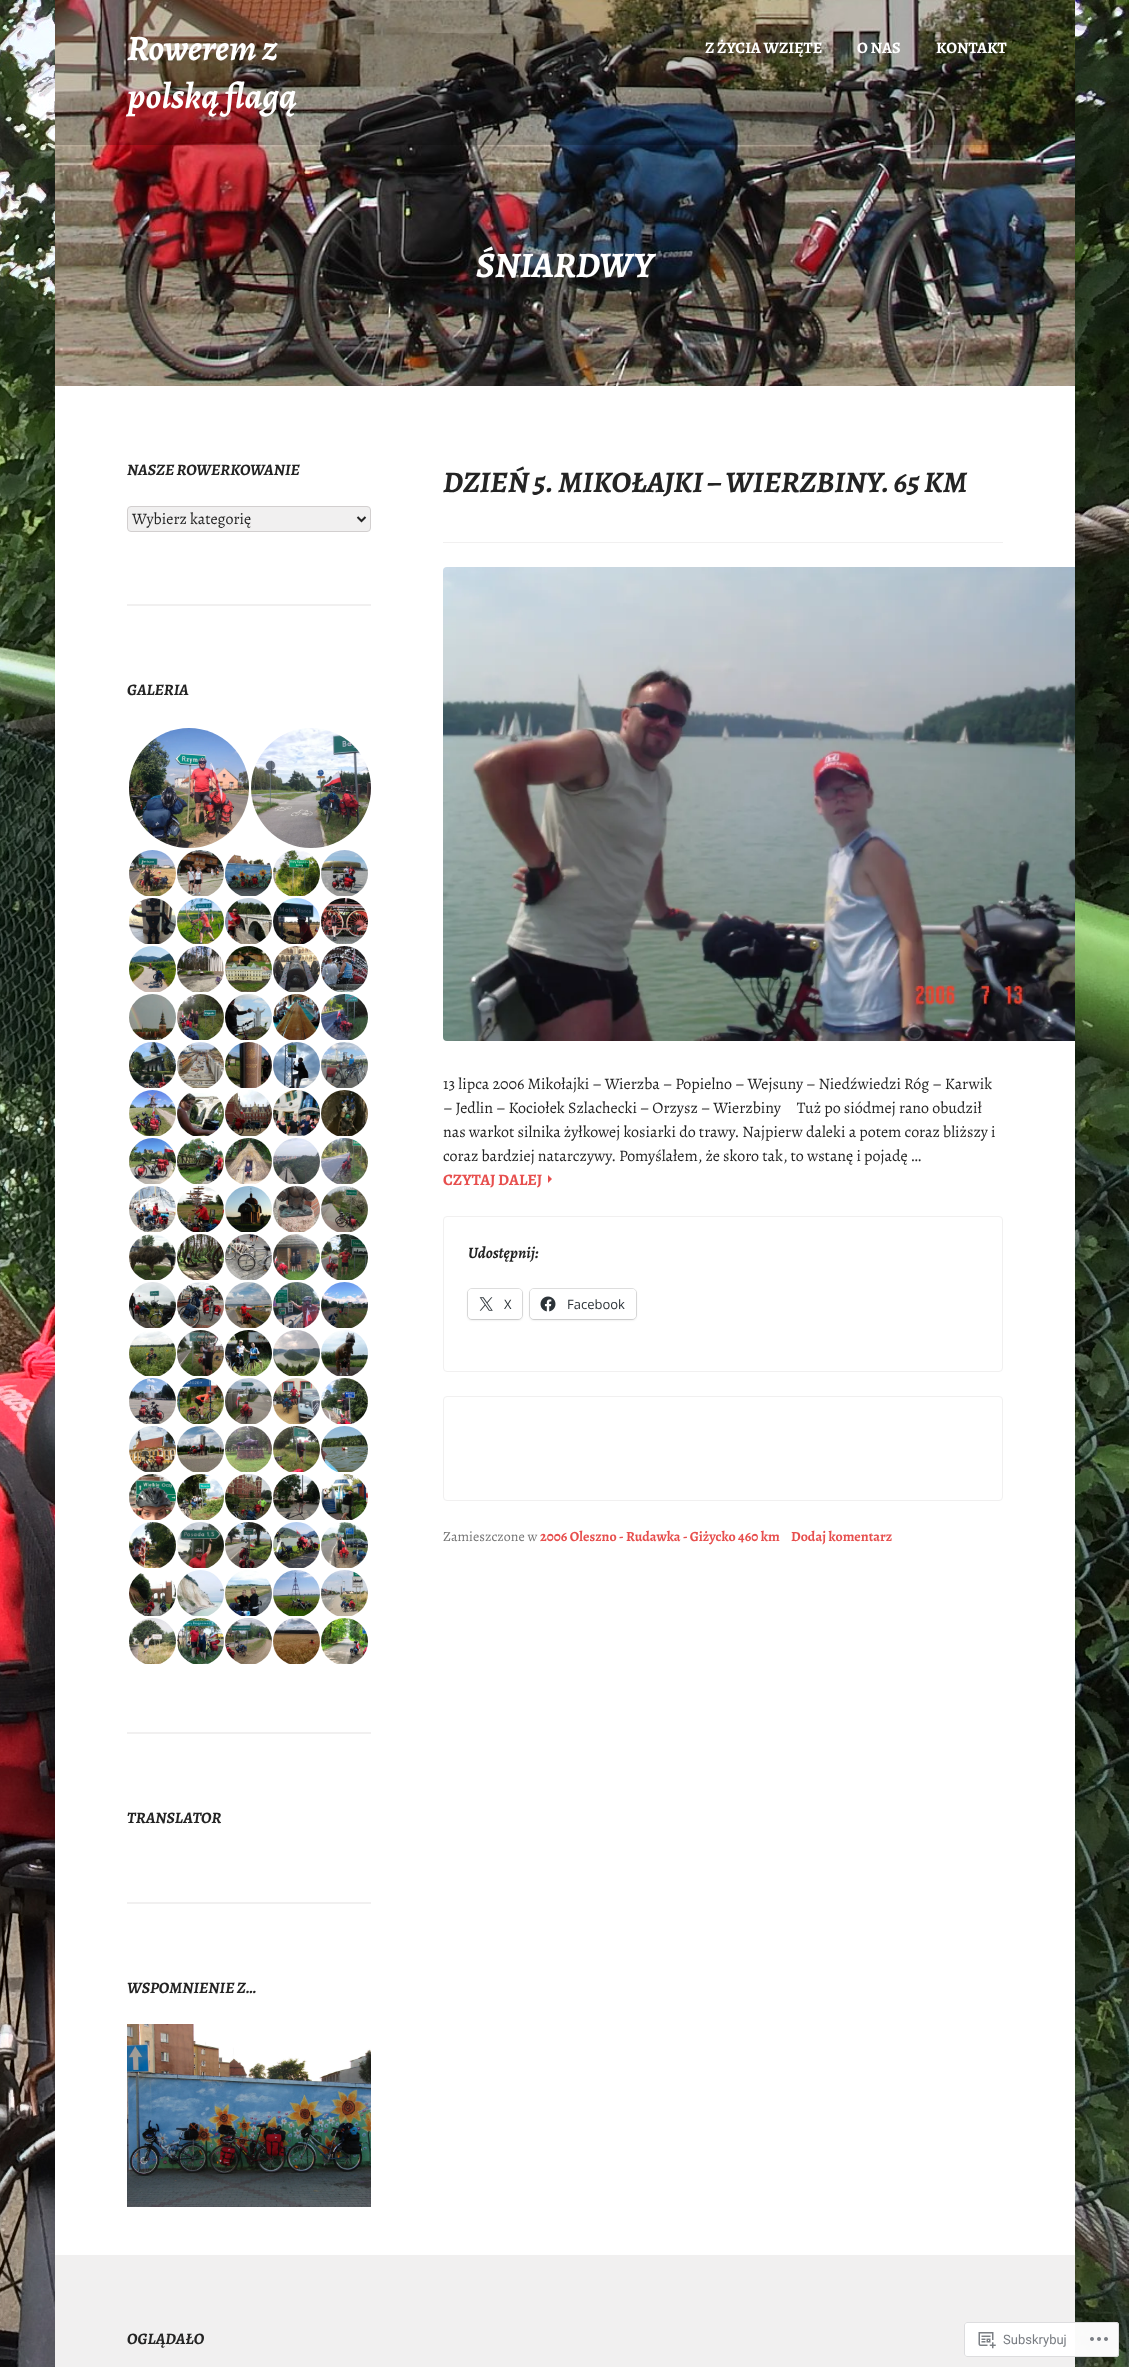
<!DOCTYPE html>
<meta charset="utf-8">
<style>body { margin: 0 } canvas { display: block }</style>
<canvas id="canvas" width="1129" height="2367"></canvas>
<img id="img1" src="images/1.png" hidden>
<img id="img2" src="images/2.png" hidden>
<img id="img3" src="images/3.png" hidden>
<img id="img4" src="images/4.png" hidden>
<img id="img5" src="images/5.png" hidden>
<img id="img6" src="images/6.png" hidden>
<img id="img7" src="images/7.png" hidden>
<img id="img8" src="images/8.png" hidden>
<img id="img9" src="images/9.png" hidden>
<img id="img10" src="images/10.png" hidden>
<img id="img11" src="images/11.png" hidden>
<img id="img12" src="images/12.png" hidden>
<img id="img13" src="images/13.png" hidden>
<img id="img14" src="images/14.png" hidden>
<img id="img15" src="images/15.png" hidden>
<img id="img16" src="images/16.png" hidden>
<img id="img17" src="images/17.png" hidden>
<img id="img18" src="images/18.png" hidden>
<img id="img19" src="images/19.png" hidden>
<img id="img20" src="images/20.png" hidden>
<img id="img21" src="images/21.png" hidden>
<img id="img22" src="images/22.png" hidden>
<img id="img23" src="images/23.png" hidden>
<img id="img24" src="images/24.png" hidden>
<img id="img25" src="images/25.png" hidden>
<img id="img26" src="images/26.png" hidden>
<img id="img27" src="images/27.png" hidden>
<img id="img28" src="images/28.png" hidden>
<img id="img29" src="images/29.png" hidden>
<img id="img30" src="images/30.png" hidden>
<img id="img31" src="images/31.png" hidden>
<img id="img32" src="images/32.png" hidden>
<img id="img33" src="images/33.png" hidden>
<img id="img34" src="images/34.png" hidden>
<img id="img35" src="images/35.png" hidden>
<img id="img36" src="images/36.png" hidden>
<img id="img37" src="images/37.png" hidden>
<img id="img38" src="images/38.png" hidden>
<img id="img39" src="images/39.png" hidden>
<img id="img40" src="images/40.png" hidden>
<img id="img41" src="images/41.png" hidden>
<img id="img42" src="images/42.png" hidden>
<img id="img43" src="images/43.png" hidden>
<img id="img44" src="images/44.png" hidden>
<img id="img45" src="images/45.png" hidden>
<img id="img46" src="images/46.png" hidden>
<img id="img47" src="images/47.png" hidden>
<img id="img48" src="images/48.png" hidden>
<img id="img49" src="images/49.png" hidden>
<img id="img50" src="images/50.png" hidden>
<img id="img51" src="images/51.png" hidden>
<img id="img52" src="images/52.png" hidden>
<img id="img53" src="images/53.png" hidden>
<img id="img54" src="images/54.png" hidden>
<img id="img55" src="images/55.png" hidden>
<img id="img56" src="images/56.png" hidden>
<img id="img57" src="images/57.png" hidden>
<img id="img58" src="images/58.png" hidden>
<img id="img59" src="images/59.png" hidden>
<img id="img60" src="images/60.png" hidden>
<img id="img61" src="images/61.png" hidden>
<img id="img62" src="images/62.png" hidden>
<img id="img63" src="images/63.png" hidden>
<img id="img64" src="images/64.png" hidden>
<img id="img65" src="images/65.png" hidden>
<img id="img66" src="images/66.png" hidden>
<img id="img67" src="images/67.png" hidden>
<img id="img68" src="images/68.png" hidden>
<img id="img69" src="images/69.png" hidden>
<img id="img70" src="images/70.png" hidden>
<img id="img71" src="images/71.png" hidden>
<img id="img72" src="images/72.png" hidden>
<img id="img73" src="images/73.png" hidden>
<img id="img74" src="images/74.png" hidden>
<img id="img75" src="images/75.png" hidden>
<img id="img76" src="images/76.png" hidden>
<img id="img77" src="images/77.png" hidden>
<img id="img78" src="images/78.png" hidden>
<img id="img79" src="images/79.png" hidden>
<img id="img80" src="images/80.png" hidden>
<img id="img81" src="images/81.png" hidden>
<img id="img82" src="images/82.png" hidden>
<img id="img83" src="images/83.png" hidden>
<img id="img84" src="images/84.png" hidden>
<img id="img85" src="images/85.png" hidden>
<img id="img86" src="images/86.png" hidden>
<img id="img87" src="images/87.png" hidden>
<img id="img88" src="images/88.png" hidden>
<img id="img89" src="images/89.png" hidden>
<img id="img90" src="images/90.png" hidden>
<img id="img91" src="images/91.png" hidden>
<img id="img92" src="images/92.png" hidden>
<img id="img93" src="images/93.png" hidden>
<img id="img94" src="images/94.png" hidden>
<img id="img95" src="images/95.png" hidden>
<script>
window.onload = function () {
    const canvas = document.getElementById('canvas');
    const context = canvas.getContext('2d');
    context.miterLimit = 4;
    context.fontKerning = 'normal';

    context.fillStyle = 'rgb(255, 255, 255)';
    context.fillRect(0, 0, 1129, 2367);
    context.drawImage(document.getElementById('img1'), 0, 0, 1129, 2367);
    context.fillRect(55, 386, 1020, 1869);
    context.drawImage(document.getElementById('img2'), 55, 0, 1020, 386);
    context.fillStyle = 'rgba(0, 0, 0, 0.22)';
    context.fillRect(55, 0, 1020, 145);
    context.fillStyle = 'rgb(241, 240, 240)';
    context.beginPath();
    context.roundRect(127.5, 506.5, 243, 25, 3.5);
    context.fill();
    context.strokeStyle = 'rgb(210, 207, 207)';
    context.stroke();
    context.beginPath();
    context.moveTo(357.5, 517);
    context.lineTo(361.5, 521);
    context.lineTo(365.5, 517);
    context.strokeStyle = 'rgb(36, 36, 36)';
    context.lineWidth = 2;
    context.stroke();
    context.fillRect(127, 604, 244, 2);
    context.drawImage(document.getElementById('img3'), 129, 728, 120, 120);
    context.drawImage(document.getElementById('img4'), 251, 728, 120, 120);
    context.drawImage(document.getElementById('img5'), 129, 850, 47, 46);
    context.drawImage(document.getElementById('img6'), 177, 850, 47, 46);
    context.drawImage(document.getElementById('img7'), 225, 854, 47, 42);
    context.drawImage(document.getElementById('img8'), 273, 850, 47, 46);
    context.drawImage(document.getElementById('img9'), 321, 850, 47, 46);
    context.drawImage(document.getElementById('img10'), 129, 898, 47, 46);
    context.drawImage(document.getElementById('img11'), 177, 898, 47, 46);
    context.drawImage(document.getElementById('img12'), 225, 898, 47, 46);
    context.drawImage(document.getElementById('img13'), 273, 898, 47, 46);
    context.drawImage(document.getElementById('img14'), 321, 898, 47, 46);
    context.drawImage(document.getElementById('img15'), 129, 946, 47, 46);
    context.drawImage(document.getElementById('img16'), 177, 946, 47, 46);
    context.drawImage(document.getElementById('img17'), 225, 946, 47, 46);
    context.drawImage(document.getElementById('img18'), 273, 946, 47, 46);
    context.drawImage(document.getElementById('img19'), 321, 946, 47, 46);
    context.drawImage(document.getElementById('img20'), 129, 994, 47, 46);
    context.drawImage(document.getElementById('img21'), 177, 994, 47, 46);
    context.drawImage(document.getElementById('img22'), 225, 994, 47, 46);
    context.drawImage(document.getElementById('img23'), 273, 994, 47, 46);
    context.drawImage(document.getElementById('img24'), 321, 994, 47, 46);
    context.drawImage(document.getElementById('img25'), 129, 1042, 47, 46);
    context.drawImage(document.getElementById('img26'), 177, 1042, 47, 46);
    context.drawImage(document.getElementById('img27'), 225, 1042, 47, 46);
    context.drawImage(document.getElementById('img28'), 273, 1042, 47, 46);
    context.drawImage(document.getElementById('img29'), 321, 1042, 47, 46);
    context.drawImage(document.getElementById('img30'), 129, 1090, 47, 46);
    context.drawImage(document.getElementById('img31'), 177, 1093, 47, 43);
    context.drawImage(document.getElementById('img32'), 225, 1090, 47, 46);
    context.drawImage(document.getElementById('img33'), 273, 1090, 47, 46);
    context.drawImage(document.getElementById('img34'), 321, 1090, 47, 46);
    context.drawImage(document.getElementById('img35'), 129, 1138, 47, 46);
    context.drawImage(document.getElementById('img36'), 177, 1138, 47, 46);
    context.drawImage(document.getElementById('img37'), 225, 1138, 47, 46);
    context.drawImage(document.getElementById('img38'), 273, 1138, 47, 46);
    context.drawImage(document.getElementById('img39'), 321, 1138, 47, 46);
    context.drawImage(document.getElementById('img40'), 129, 1186, 47, 46);
    context.drawImage(document.getElementById('img41'), 177, 1186, 47, 46);
    context.drawImage(document.getElementById('img42'), 225, 1186, 47, 46);
    context.drawImage(document.getElementById('img43'), 273, 1186, 47, 46);
    context.drawImage(document.getElementById('img44'), 321, 1186, 47, 46);
    context.drawImage(document.getElementById('img45'), 129, 1234, 47, 46);
    context.drawImage(document.getElementById('img46'), 177, 1234, 47, 46);
    context.drawImage(document.getElementById('img47'), 225, 1234, 47, 46);
    context.drawImage(document.getElementById('img48'), 273, 1234, 47, 46);
    context.drawImage(document.getElementById('img49'), 321, 1234, 47, 46);
    context.drawImage(document.getElementById('img50'), 129, 1282, 47, 46);
    context.drawImage(document.getElementById('img51'), 177, 1282, 47, 46);
    context.drawImage(document.getElementById('img52'), 225, 1282, 47, 46);
    context.drawImage(document.getElementById('img53'), 273, 1282, 47, 46);
    context.drawImage(document.getElementById('img54'), 321, 1282, 47, 46);
    context.drawImage(document.getElementById('img55'), 129, 1331, 47, 45);
    context.drawImage(document.getElementById('img56'), 177, 1330, 47, 46);
    context.drawImage(document.getElementById('img57'), 225, 1330, 47, 46);
    context.drawImage(document.getElementById('img58'), 273, 1330, 47, 46);
    context.drawImage(document.getElementById('img59'), 321, 1330, 47, 46);
    context.drawImage(document.getElementById('img60'), 129, 1378, 47, 46);
    context.drawImage(document.getElementById('img61'), 177, 1378, 47, 46);
    context.drawImage(document.getElementById('img62'), 225, 1378, 47, 46);
    context.drawImage(document.getElementById('img63'), 273, 1378, 47, 46);
    context.drawImage(document.getElementById('img64'), 321, 1378, 47, 46);
    context.drawImage(document.getElementById('img65'), 129, 1426, 47, 46);
    context.drawImage(document.getElementById('img66'), 177, 1426, 47, 46);
    context.drawImage(document.getElementById('img67'), 225, 1426, 47, 46);
    context.drawImage(document.getElementById('img68'), 273, 1426, 47, 46);
    context.drawImage(document.getElementById('img69'), 321, 1426, 47, 46);
    context.drawImage(document.getElementById('img70'), 129, 1474, 47, 46);
    context.drawImage(document.getElementById('img71'), 177, 1474, 47, 46);
    context.drawImage(document.getElementById('img72'), 225, 1474, 47, 46);
    context.drawImage(document.getElementById('img73'), 273, 1474, 47, 46);
    context.drawImage(document.getElementById('img74'), 321, 1474, 47, 46);
    context.drawImage(document.getElementById('img75'), 129, 1522, 47, 46);
    context.drawImage(document.getElementById('img76'), 177, 1522, 47, 46);
    context.drawImage(document.getElementById('img77'), 225, 1522, 47, 46);
    context.drawImage(document.getElementById('img78'), 273, 1522, 47, 46);
    context.drawImage(document.getElementById('img79'), 321, 1522, 47, 46);
    context.drawImage(document.getElementById('img80'), 129, 1573, 47, 43);
    context.drawImage(document.getElementById('img81'), 177, 1570, 47, 46);
    context.drawImage(document.getElementById('img82'), 225, 1570, 47, 46);
    context.drawImage(document.getElementById('img83'), 273, 1570, 47, 46);
    context.drawImage(document.getElementById('img84'), 321, 1570, 47, 46);
    context.drawImage(document.getElementById('img85'), 129, 1618, 47, 46);
    context.drawImage(document.getElementById('img86'), 177, 1618, 47, 46);
    context.drawImage(document.getElementById('img87'), 225, 1618, 47, 46);
    context.drawImage(document.getElementById('img88'), 273, 1618, 47, 46);
    context.drawImage(document.getElementById('img89'), 321, 1618, 47, 46);
    context.fillRect(127, 1732, 244, 2);
    context.fillRect(127, 1902, 244, 2);
    context.drawImage(document.getElementById('img90'), 127, 2024, 244, 183);
    context.fillRect(443, 542, 560, 1);
    context.drawImage(document.getElementById('img91'), 443, 567, 632, 474);
    context.fillStyle = 'rgb(231, 79, 78)';
    context.beginPath();
    context.moveTo(548, 1183);
    context.lineTo(548, 1175);
    context.lineTo(552, 1179);
    context.closePath();
    context.fill();
    context.beginPath();
    context.roundRect(443.5, 1216.5, 559, 155, 3.5);
    context.strokeStyle = 'rgb(241, 240, 240)';
    context.lineWidth = 1;
    context.stroke();
    context.beginPath();
    context.roundRect(467.5, 1288.5, 55, 31, 4.5);
    context.strokeStyle = 'rgb(224, 224, 224)';
    context.stroke();
    context.fillStyle = 'rgba(0, 0, 0, 0.12)';
    context.filter = 'blur(1px)';
    context.beginPath();
    context.roundRect(468, 1290, 54, 30, 4);
    context.fill();
    context.filter = 'none';
    context.fillStyle = 'rgb(255, 255, 255)';
    context.beginPath();
    context.roundRect(468, 1289, 54, 30, 4);
    context.fill();
    context.drawImage(document.getElementById('img92'), 479, 1297, 14, 14);
    context.beginPath();
    context.roundRect(529.5, 1288.5, 107, 31, 4.5);
    context.stroke();
    context.fillStyle = 'rgba(0, 0, 0, 0.12)';
    context.filter = 'blur(1px)';
    context.beginPath();
    context.roundRect(530, 1290, 106, 30, 4);
    context.fill();
    context.filter = 'none';
    context.fillStyle = 'rgb(255, 255, 255)';
    context.beginPath();
    context.roundRect(530, 1289, 106, 30, 4);
    context.fill();
    context.drawImage(document.getElementById('img93'), 540, 1296, 16, 16);
    context.beginPath();
    context.roundRect(443.5, 1396.5, 559, 104, 3.5);
    context.strokeStyle = 'rgb(241, 240, 240)';
    context.stroke();
    context.fillStyle = 'rgb(241, 240, 240)';
    context.fillRect(55, 2255, 1020, 112);
    context.fillStyle = 'rgba(255, 255, 255, 0.98)';
    context.beginPath();
    context.roundRect(964, 2322, 155, 35, 3);
    context.fill();
    context.beginPath();
    context.roundRect(964.5, 2322.5, 154, 34, 2.5);
    context.strokeStyle = 'rgba(220, 220, 222, 0.98)';
    context.stroke();
    context.drawImage(document.getElementById('img94'), 978, 2332, 18, 17);
    context.drawImage(document.getElementById('img95'), 1090, 2337, 18, 4);
    context.font = 'italic bold 36px Alegreya';
    context.fillStyle = 'rgb(255, 255, 255)';
    context.fillText('Rowerem z', 127, 60);
    context.fillText('polską flagą', 127, 108);
    context.font = 'bold 16px Alegreya';
    context.fillText('Z ŻYCIA WZIĘTE', 705, 53);
    context.fillText('O NAS', 857, 53);
    context.fillText('KONTAKT', 936, 53);
    context.font = 'italic bold 36px Alegreya';
    context.fillText('ŚNIARDWY', 476, 277);
    context.font = 'italic bold 16px Alegreya';
    context.fillStyle = 'rgb(36, 36, 36)';
    context.fillText('NASZE ROWERKOWANIE', 127, 475);
    context.font = '16px Alegreya';
    context.fillText('Wybierz kategorię', 132, 524);
    context.font = 'italic bold 16px Alegreya';
    context.fillText('GALERIA', 127, 695);
    context.fillText('TRANSLATOR', 127, 1823);
    context.fillText('WSPOMNIENIE Z…', 127, 1993);
    context.font = 'italic bold 30px Alegreya';
    context.fillText('DZIEŃ 5. MIKOŁAJKI – WIERZBINY. 65 KM', 443, 492);
    context.font = '16px Alegreya';
    context.fillText('13 lipca 2006 Mikołajki – Wierzba – Popielno – Wejsuny – Niedźwiedzi Róg – Karwik', 443, 1089);
    context.fillText('– Jedlin – Kociołek Szlachecki – Orzysz – Wierzbiny     Tuż po siódmej rano obudził', 443, 1113);
    context.fillText('nas warkot silnika żyłkowej kosiarki do trawy. Najpierw daleki a potem coraz bliższy i', 443, 1137);
    context.fillText('coraz bardziej natarczywy. Pomyślałem, że skoro tak, to wstanę i pojadę …', 443, 1161);
    context.font = 'bold 16px Alegreya';
    context.fillStyle = 'rgb(231, 79, 78)';
    context.fillText('CZYTAJ DALEJ', 443, 1185);
    context.font = 'italic bold 16px Alegreya';
    context.fillStyle = 'rgb(36, 36, 36)';
    context.fillText('Udostępnij:', 468, 1258);
    context.font = '13px Open Sans';
    context.fillStyle = 'rgb(44, 51, 56)';
    context.fillText('X', 504, 1309);
    context.fillText('Facebook', 567, 1309);
    context.font = '14px Alegreya';
    context.fillStyle = 'rgb(117, 117, 117)';
    context.fillText('Zamieszczone w', 443, 1541);
    context.font = 'bold 14px Alegreya';
    context.fillStyle = 'rgb(231, 79, 78)';
    context.fillText('2006 Oleszno - Rudawka - Giżycko 460 km', 540, 1541);
    context.fillText('Dodaj komentarz', 791, 1541);
    context.font = 'italic bold 16px Alegreya';
    context.fillStyle = 'rgb(36, 36, 36)';
    context.fillText('OGLĄDAŁO', 127, 2344);
    context.font = '13px Roboto';
    context.fillStyle = 'rgb(122, 126, 132)';
    context.fillText('Subskrybuj', 1003, 2344);
};
</script>
